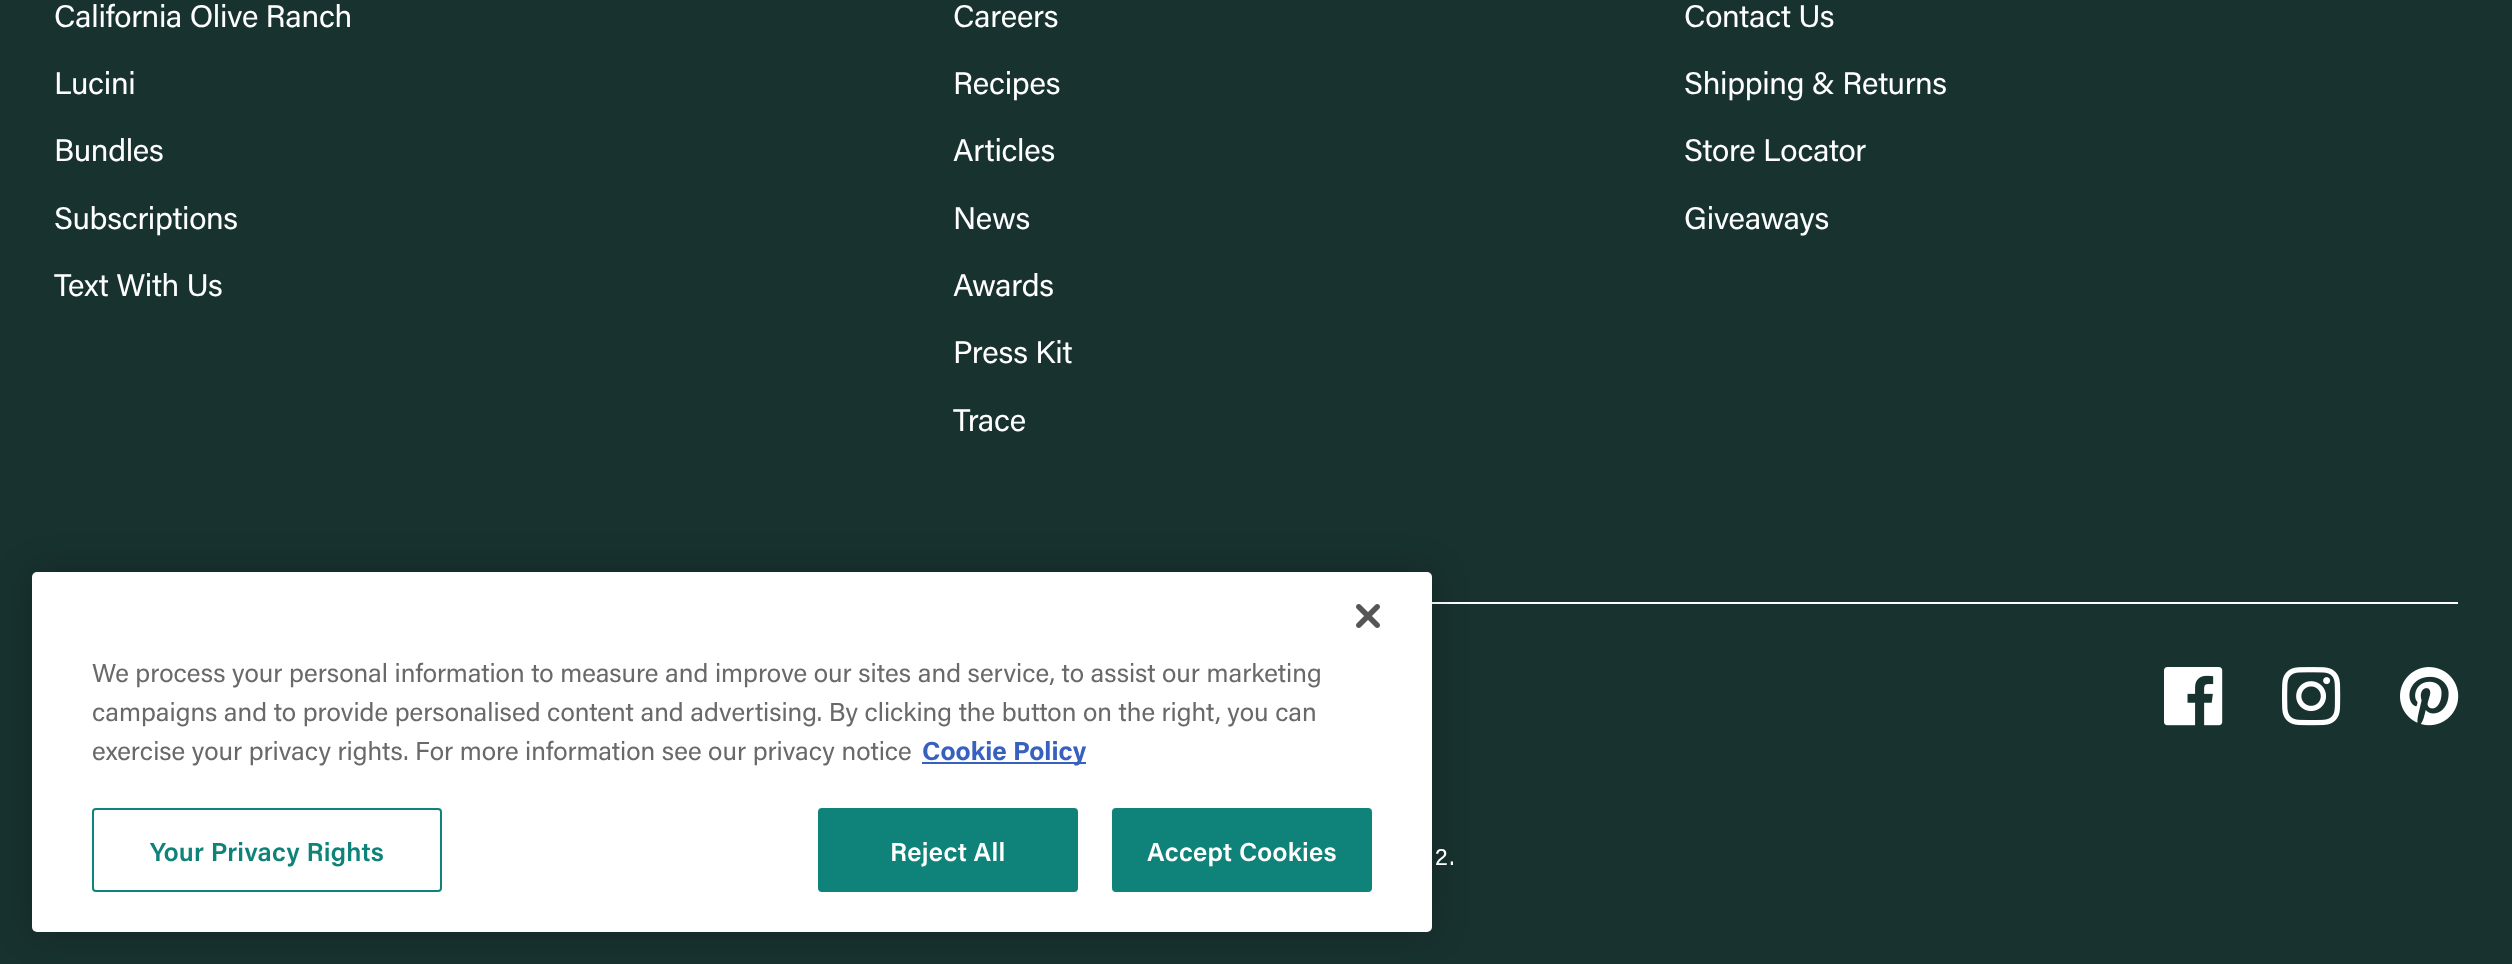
<!DOCTYPE html>
<meta charset="utf-8">
<style>body { margin: 0 } canvas { display: block }</style>
<canvas id="canvas" width="2512" height="964"></canvas>
<img id="img1" src="images/1.png" hidden>
<img id="img2" src="images/2.png" hidden>
<img id="img3" src="images/3.png" hidden>
<img id="img4" src="images/4.png" hidden>
<script>
window.onload = function () {
    const canvas = document.getElementById('canvas');
    const context = canvas.getContext('2d');
    context.miterLimit = 4;
    context.fontKerning = 'normal';

    context.fillStyle = 'rgb(24, 50, 47)';
    context.fillRect(0, 0, 2512, 964);
    context.fillStyle = 'rgb(255, 255, 255)';
    context.fillRect(1432, 602, 1026, 2);
    context.drawImage(document.getElementById('img1'), 2164, 667, 59, 59);
    context.drawImage(document.getElementById('img2'), 2282, 667, 59, 59);
    context.drawImage(document.getElementById('img3'), 2400, 667, 59, 59);
    context.fillStyle = 'rgba(0, 0, 0, 0.2)';
    context.filter = 'blur(18px)';
    context.beginPath();
    context.roundRect(32, 572, 1400, 360, 5);
    context.fill();
    context.filter = 'none';
    context.fillStyle = 'rgb(255, 255, 255)';
    context.beginPath();
    context.roundRect(32, 572, 1400, 360, 5);
    context.fill();
    context.drawImage(document.getElementById('img4'), 1356, 604, 24, 24);
    context.fillStyle = 'rgb(56, 96, 190)';
    context.fillRect(922, 762, 164, 2);
    context.beginPath();
    context.roundRect(93, 809, 348, 82, 3);
    context.strokeStyle = 'rgb(15, 131, 121)';
    context.lineWidth = 2;
    context.stroke();
    context.fillStyle = 'rgb(15, 131, 121)';
    context.beginPath();
    context.roundRect(819, 809, 258, 82, 3);
    context.fill();
    context.stroke();
    context.beginPath();
    context.roundRect(1113, 809, 258, 82, 3);
    context.fill();
    context.stroke();
    context.letterSpacing = '-0.3px';
    context.font = '31.25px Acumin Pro';
    context.fillStyle = 'rgb(255, 255, 255)';
    context.fillText('California Olive Ranch', 54, 27);
    context.fillText('Lucini', 54, 94);
    context.fillText('Bundles', 54, 161);
    context.fillText('Subscriptions', 54, 229);
    context.fillText('Text With Us', 54, 296);
    context.fillText('Careers', 953, 27);
    context.fillText('Recipes', 953, 94);
    context.fillText('Articles', 953, 161);
    context.fillText('News', 953, 229);
    context.fillText('Awards', 953, 296);
    context.fillText('Press Kit', 953, 363);
    context.fillText('Trace', 953, 431);
    context.fillText('Contact Us', 1684, 27);
    context.fillText('Shipping & Returns', 1684, 94);
    context.fillText('Store Locator', 1684, 161);
    context.fillText('Giveaways', 1684, 229);
    context.letterSpacing = '1px';
    context.font = '24px Acumin Pro';
    context.fillText('2.', 1435, 865);
    context.letterSpacing = '0px';
    context.font = '26px Acumin Pro';
    context.fillStyle = 'rgb(105, 105, 105)';
    context.fillText('We process your personal information to measure and improve our sites and service, to assist our marketing', 92, 682);
    context.fillText('campaigns and to provide personalised content and advertising. By clicking the button on the right, you can', 92, 721);
    context.fillText('exercise your privacy rights. For more information see our privacy notice', 92, 760);
    context.font = 'bold 26px Acumin Pro';
    context.fillStyle = 'rgb(56, 96, 190)';
    context.fillText('Cookie Policy', 922, 760);
    context.letterSpacing = '0.25px';
    context.font = '600 26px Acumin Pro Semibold';
    context.fillStyle = 'rgb(15, 131, 121)';
    context.fillText('Your Privacy Rights', 150, 861);
    context.fillStyle = 'rgb(255, 255, 255)';
    context.fillText('Reject All', 890, 861);
    context.fillText('Accept Cookies', 1147, 861);
};
</script>
